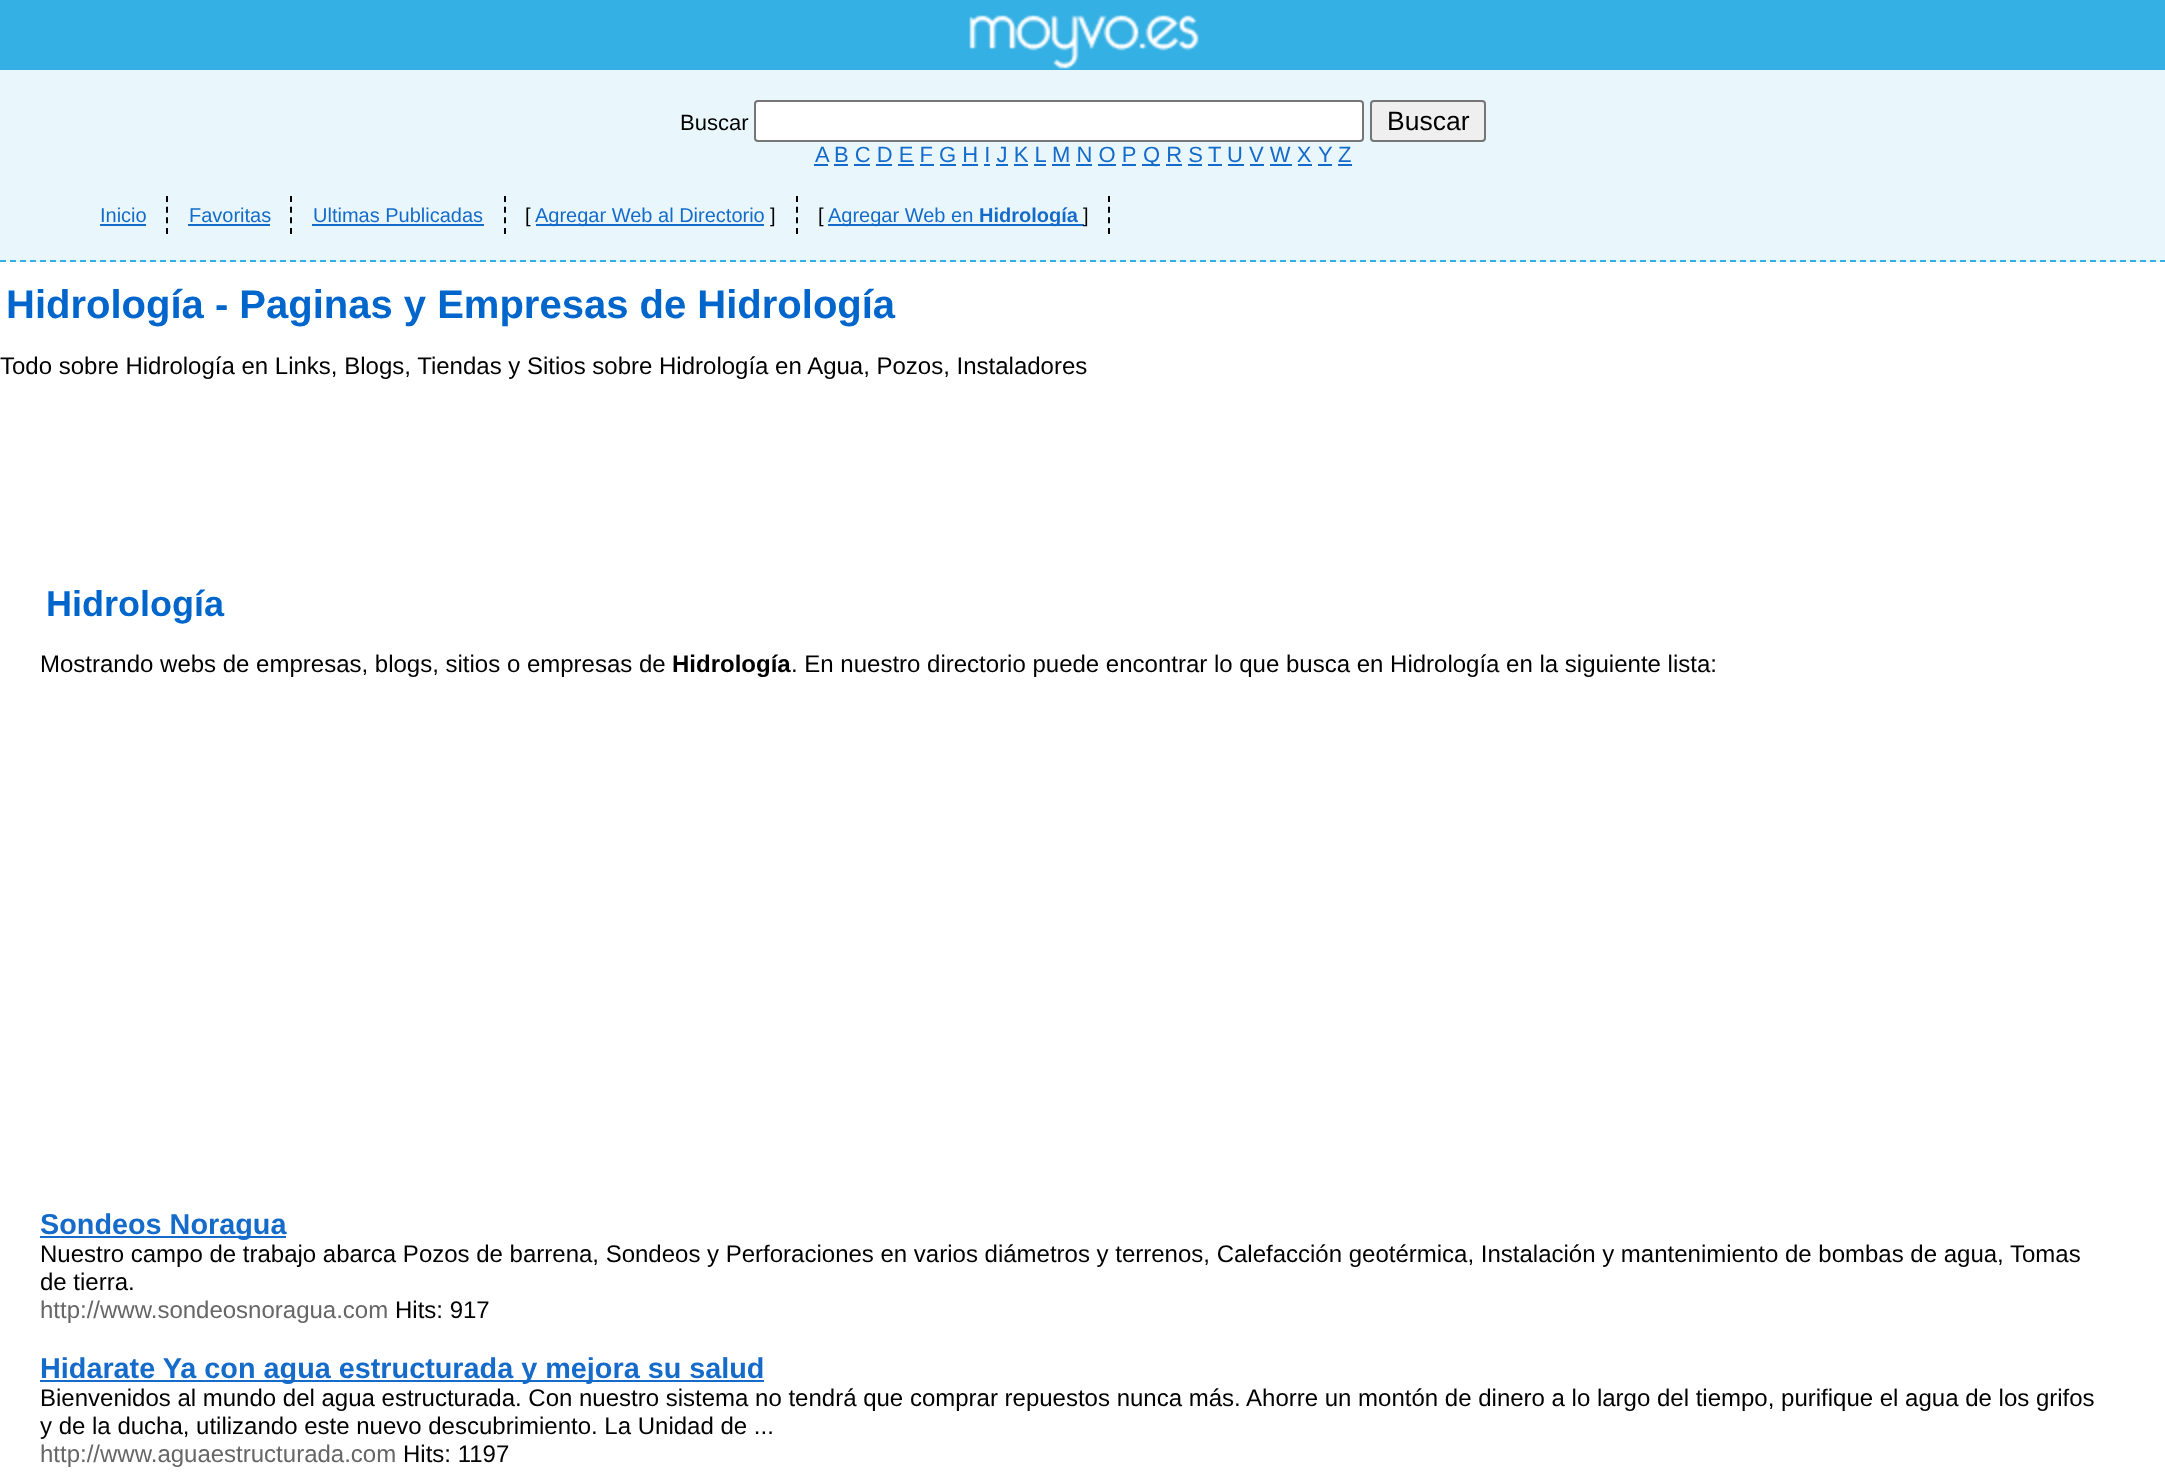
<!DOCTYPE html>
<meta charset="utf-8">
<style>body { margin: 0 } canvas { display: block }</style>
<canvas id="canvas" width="2165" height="1474"></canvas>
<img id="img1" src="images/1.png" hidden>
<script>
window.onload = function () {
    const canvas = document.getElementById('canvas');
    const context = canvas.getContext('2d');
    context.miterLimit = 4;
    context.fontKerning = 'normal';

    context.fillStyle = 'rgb(255, 255, 255)';
    context.fillRect(0, 0, 2165, 1474);
    context.fillStyle = 'rgb(52, 176, 228)';
    context.fillRect(0, 0, 2165, 70);
    context.drawImage(document.getElementById('img1'), 969, 14, 230, 55);
    context.fillStyle = 'rgb(233, 247, 252)';
    context.fillRect(0, 70, 2165, 192);
    context.beginPath();
    context.moveTo(0, 261);
    context.lineTo(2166, 261);
    context.strokeStyle = 'rgb(52, 176, 228)';
    context.lineWidth = 2;
    context.setLineDash([6, 4]);
    context.stroke();
    context.fillStyle = 'rgb(255, 255, 255)';
    context.beginPath();
    context.roundRect(755, 101, 608, 40, 3);
    context.fill();
    context.strokeStyle = 'rgb(118, 118, 118)';
    context.setLineDash([]);
    context.stroke();
    context.fillStyle = 'rgb(239, 239, 239)';
    context.beginPath();
    context.roundRect(1371, 101, 114, 40, 3);
    context.fill();
    context.stroke();
    context.fillStyle = 'rgb(21, 107, 202)';
    context.fillRect(814, 164, 14, 2);
    context.fillRect(834, 164, 14, 2);
    context.fillRect(1052, 164, 18, 2);
    context.fillRect(1142, 164, 18, 2);
    context.fillRect(1208, 164, 14, 2);
    context.fillRect(1228, 164, 16, 2);
    context.fillRect(1318, 164, 14, 2);
    context.fillRect(1338, 164, 14, 2);
    context.fillRect(854, 164, 16, 2);
    context.fillRect(876, 164, 16, 2);
    context.fillRect(898, 164, 16, 2);
    context.fillRect(920, 164, 14, 2);
    context.fillRect(940, 164, 16, 2);
    context.fillRect(962, 164, 16, 2);
    context.fillRect(984, 164, 6, 2);
    context.fillRect(996, 164, 12, 2);
    context.fillRect(1014, 164, 14, 2);
    context.fillRect(1034, 164, 12, 2);
    context.fillRect(1076, 164, 16, 2);
    context.fillRect(1098, 164, 18, 2);
    context.fillRect(1122, 164, 14, 2);
    context.fillRect(1166, 164, 16, 2);
    context.fillRect(1188, 164, 14, 2);
    context.fillRect(1250, 164, 14, 2);
    context.fillRect(1270, 164, 22, 2);
    context.fillRect(1298, 164, 14, 2);
    context.beginPath();
    context.moveTo(167, 196);
    context.lineTo(167, 234);
    context.strokeStyle = 'rgb(0, 0, 0)';
    context.setLineDash([6, 4.66]);
    context.stroke();
    context.fillRect(100, 224, 46, 2);
    context.beginPath();
    context.moveTo(291, 196);
    context.lineTo(291, 234);
    context.stroke();
    context.fillRect(188, 224, 82, 2);
    context.beginPath();
    context.moveTo(505, 196);
    context.lineTo(505, 234);
    context.stroke();
    context.fillRect(312, 224, 172, 2);
    context.beginPath();
    context.moveTo(797, 196);
    context.lineTo(797, 234);
    context.stroke();
    context.fillRect(536, 224, 228, 2);
    context.beginPath();
    context.moveTo(1109, 196);
    context.lineTo(1109, 234);
    context.stroke();
    context.fillRect(828, 224, 256, 2);
    context.fillRect(40, 1236, 246, 2);
    context.fillRect(40, 1380, 724, 2);
    context.font = '22px Liberation Sans';
    context.fillStyle = 'rgb(0, 0, 0)';
    context.fillText('Buscar', 680, 130);
    context.font = '26.5px Liberation Sans';
    context.fillText('Buscar', 1387, 130);
    context.font = '22px Liberation Sans';
    context.fillStyle = 'rgb(21, 107, 202)';
    context.fillText('A', 815, 162);
    context.fillText('B C D E F G H I J K L', 834, 162);
    context.fillText('M N O P', 1052, 162);
    context.fillText('Q R S', 1143, 162);
    context.fillText('T', 1208, 162);
    context.fillText('U V W X', 1227, 162);
    context.fillText('Y', 1318, 162);
    context.fillText('Z', 1338, 162);
    context.font = '20px Liberation Sans';
    context.fillText('Inicio', 100, 222);
    context.fillText('Favoritas', 189, 222);
    context.fillText('Ultimas Publicadas', 313, 222);
    context.fillStyle = 'rgb(0, 0, 0)';
    context.fillText('[', 525, 222);
    context.fillStyle = 'rgb(21, 107, 202)';
    context.fillText('Agregar Web al Directorio', 535, 222);
    context.fillStyle = 'rgb(0, 0, 0)';
    context.fillText(']', 770, 222);
    context.fillText('[', 818, 222);
    context.fillStyle = 'rgb(21, 107, 202)';
    context.fillText('Agregar Web en', 828, 222);
    context.font = 'bold 20px Liberation Sans';
    context.fillText('Hidrología', 979, 222);
    context.font = '20px Liberation Sans';
    context.fillStyle = 'rgb(0, 0, 0)';
    context.fillText(']', 1083, 222);
    context.font = 'bold 40px Liberation Sans';
    context.fillStyle = 'rgb(0, 102, 204)';
    context.fillText('Hidrología - Paginas y Empresas de Hidrología', 6, 318);
    context.font = '24px Liberation Sans';
    context.fillStyle = 'rgb(0, 0, 0)';
    context.fillText('Todo sobre Hidrología en Links, Blogs, Tiendas y Sitios sobre Hidrología en Agua, Pozos, Instaladores', 0, 374);
    context.font = 'bold 36px Liberation Sans';
    context.fillStyle = 'rgb(0, 102, 204)';
    context.fillText('Hidrología', 46, 616);
    context.font = '24px Liberation Sans';
    context.fillStyle = 'rgb(0, 0, 0)';
    context.fillText('Mostrando webs de empresas, blogs, sitios o empresas de', 40, 672);
    context.font = 'bold 24px Liberation Sans';
    context.fillText('Hidrología', 672, 672);
    context.font = '24px Liberation Sans';
    context.fillText('. En nuestro directorio puede encontrar lo que busca en Hidrología en la siguiente lista:', 791, 672);
    context.font = 'bold 28.8px Liberation Sans';
    context.fillStyle = 'rgb(21, 107, 202)';
    context.fillText('Sondeos Noragua', 40, 1234);
    context.font = '24px Liberation Sans';
    context.fillStyle = 'rgb(0, 0, 0)';
    context.fillText('Nuestro campo de trabajo abarca Pozos de barrena, Sondeos y Perforaciones en varios diámetros y terrenos, Calefacción geotérmica, Instalación y mantenimiento de bombas de agua, Tomas', 40, 1262);
    context.fillText('de tierra.', 40, 1290);
    context.fillStyle = 'rgb(102, 102, 102)';
    context.fillText('http://www.sondeosnoragua.com', 40, 1318);
    context.fillStyle = 'rgb(0, 0, 0)';
    context.fillText('Hits: 917', 395, 1318);
    context.font = 'bold 28.8px Liberation Sans';
    context.fillStyle = 'rgb(21, 107, 202)';
    context.fillText('Hidarate Ya con agua estructurada y mejora su salud', 40, 1378);
    context.font = '24px Liberation Sans';
    context.fillStyle = 'rgb(0, 0, 0)';
    context.fillText('Bienvenidos al mundo del agua estructurada. Con nuestro sistema no tendrá que comprar repuestos nunca más. Ahorre un montón de dinero a lo largo del tiempo, purifique el agua de los grifos', 40, 1406);
    context.fillText('y de la ducha, utilizando este nuevo descubrimiento. La Unidad de ...', 40, 1434);
    context.fillStyle = 'rgb(102, 102, 102)';
    context.fillText('http://www.aguaestructurada.com', 40, 1462);
    context.fillStyle = 'rgb(0, 0, 0)';
    context.fillText('Hits: 1197', 403, 1462);
};
</script>
